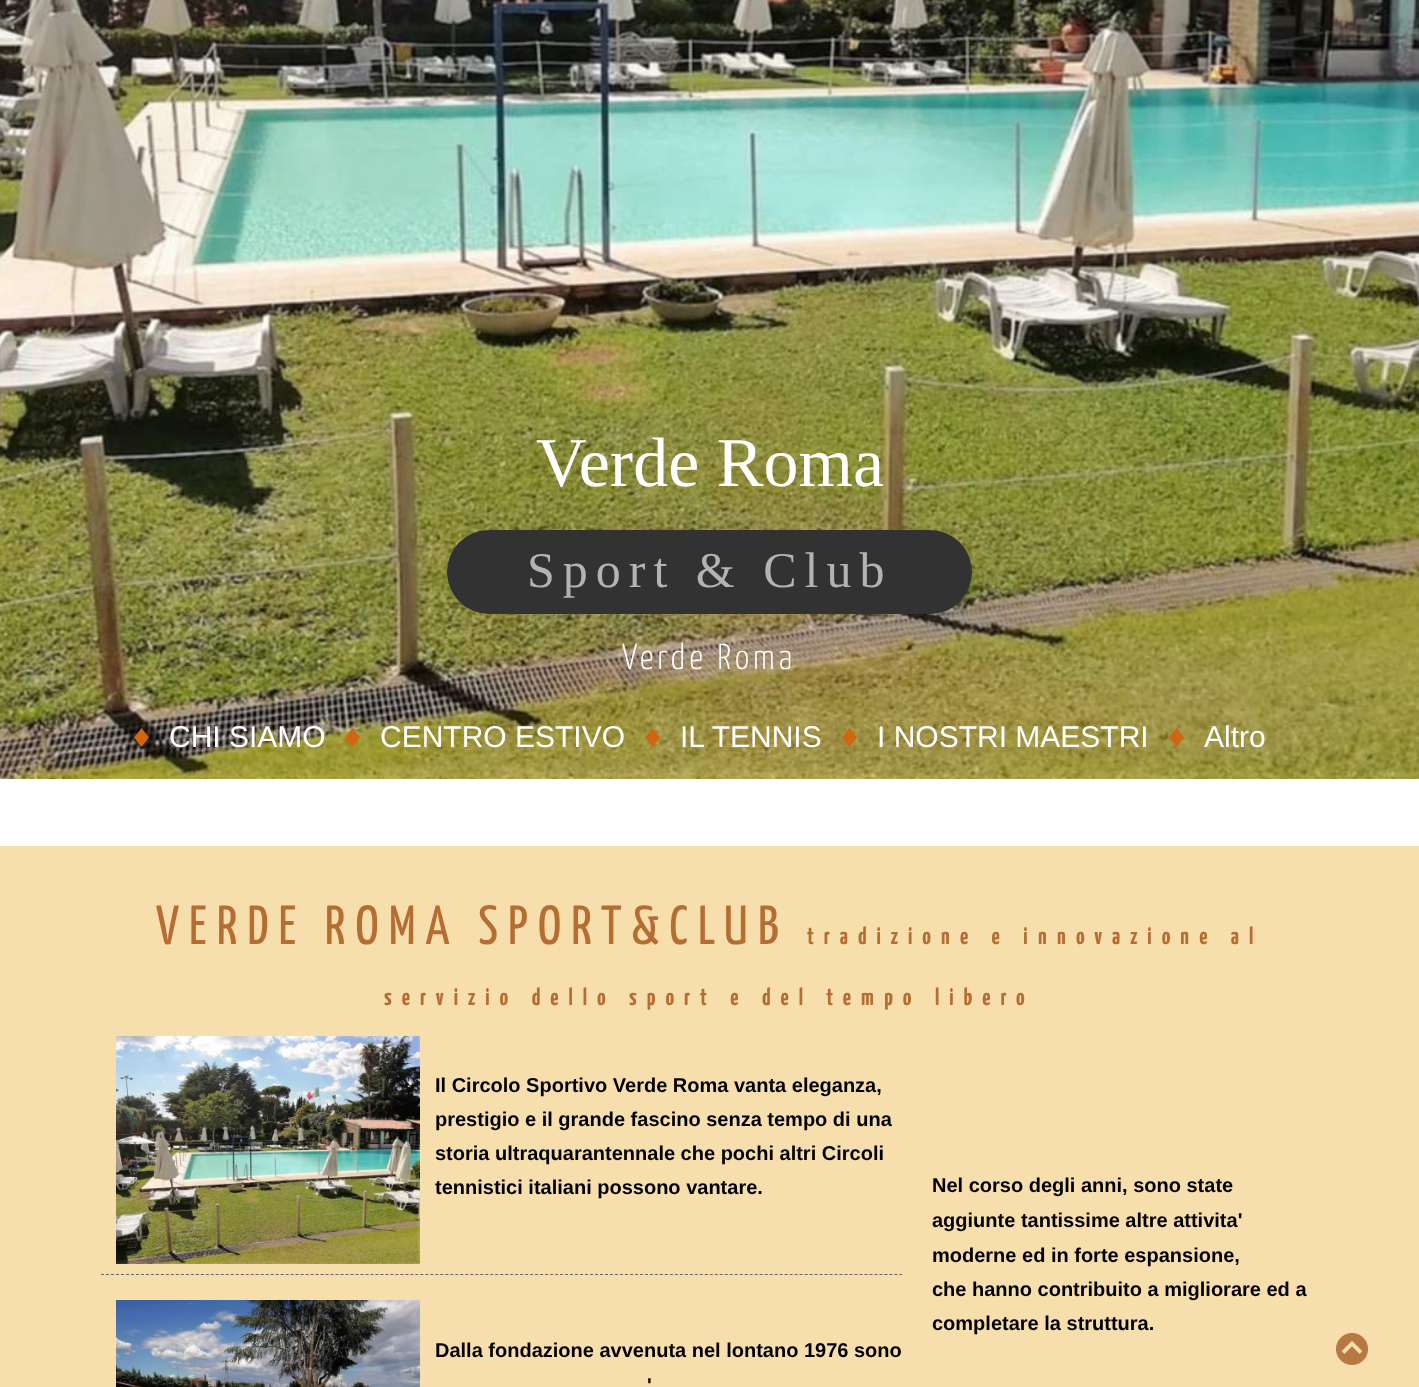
<!DOCTYPE html>
<meta charset="utf-8">
<style>body { margin: 0 } canvas { display: block }</style>
<canvas id="canvas" width="1419" height="1387"></canvas>
<img id="img1" src="images/1.png" hidden>
<img id="img2" src="images/2.png" hidden>
<img id="img3" src="images/3.png" hidden>
<img id="img4" src="images/4.png" hidden>
<img id="img5" src="images/5.png" hidden>
<img id="img6" src="images/6.png" hidden>
<img id="img7" src="images/7.png" hidden>
<img id="img8" src="images/8.png" hidden>
<img id="img9" src="images/9.png" hidden>
<script>
window.onload = function () {
    const canvas = document.getElementById('canvas');
    const context = canvas.getContext('2d');
    context.miterLimit = 4;
    context.fontKerning = 'normal';

    context.fillStyle = 'rgb(255, 255, 255)';
    context.fillRect(0, 0, 1419, 1387);
    context.drawImage(document.getElementById('img1'), 0, 0, 1419, 779);
    context.fillStyle = 'rgb(50, 50, 50)';
    context.beginPath();
    context.roundRect(447, 530, 525, 84, 42);
    context.fill();
    context.drawImage(document.getElementById('img2'), 134, 728, 15, 19);
    context.drawImage(document.getElementById('img3'), 345, 728, 15, 19);
    context.drawImage(document.getElementById('img4'), 645, 728, 15, 19);
    context.drawImage(document.getElementById('img5'), 842, 728, 15, 19);
    context.drawImage(document.getElementById('img6'), 1169, 728, 15, 19);
    context.fillStyle = 'rgb(247, 222, 173)';
    context.fillRect(0, 846, 1419, 541);
    context.drawImage(document.getElementById('img7'), 116, 1036, 304, 228);
    context.beginPath();
    context.moveTo(101, 1274.5);
    context.lineTo(902, 1274.5);
    context.strokeStyle = 'rgb(102, 102, 102)';
    context.setLineDash([3, 1.99]);
    context.stroke();
    context.drawImage(document.getElementById('img8'), 116, 1300, 304, 87);
    context.drawImage(document.getElementById('img9'), 1336, 1333, 32, 32);
    context.font = '70px Liberation Serif';
    context.fillStyle = 'rgb(255, 255, 255)';
    context.fillText('Verde Roma', 536, 486);
    context.letterSpacing = '8px';
    context.font = '50px Liberation Serif';
    context.fillStyle = 'rgb(179, 179, 179)';
    context.fillText('Sport & Club', 527, 587);
    context.letterSpacing = '4px';
    context.font = '300 36px Yanone Kaffeesatz';
    context.fillStyle = 'rgb(255, 255, 255)';
    context.fillText('Verde Roma', 622, 669);
    context.letterSpacing = '0px';
    context.font = '30px Arimo';
    context.fillText('CHI SIAMO', 169, 747);
    context.fillText('CENTRO ESTIVO', 380, 747);
    context.fillText('IL TENNIS', 680, 747);
    context.fillText('I NOSTRI MAESTRI', 877, 747);
    context.fillText('Altro', 1204, 747);
    context.letterSpacing = '10px';
    context.font = '55px Yanone Kaffeesatz';
    context.fillStyle = 'rgb(182, 109, 50)';
    context.fillText('VERDE ROMA SPORT&CLUB', 156, 944);
    context.font = 'bold 24px Yanone Kaffeesatz';
    context.fillText('tradizione e innovazione al', 807, 944);
    context.fillText('servizio dello sport e del tempo libero', 384, 1005);
    context.letterSpacing = '0px';
    context.font = 'bold 20px Liberation Sans';
    context.fillStyle = 'rgb(0, 0, 0)';
    context.fillText('Il Circolo Sportivo Verde Roma vanta eleganza,', 435, 1092);
    context.fillText('prestigio e il grande fascino senza tempo di una', 435, 1126);
    context.fillText('storia ultraquarantennale che pochi altri Circoli', 435, 1160);
    context.fillText('tennistici italiani possono vantare.', 435, 1194);
    context.fillText('Dalla fondazione avvenuta nel lontano 1976 sono', 435, 1357);
    context.fillText('\'', 647, 1392);
    context.fillText('Nel corso degli anni, sono state', 932, 1192);
    context.fillText('aggiunte tantissime altre attivita\'', 932, 1227);
    context.fillText('moderne ed in forte espansione,', 932, 1262);
    context.fillText('che hanno contribuito a migliorare ed a', 932, 1296);
    context.fillText('completare la struttura.', 932, 1330);
};
</script>
